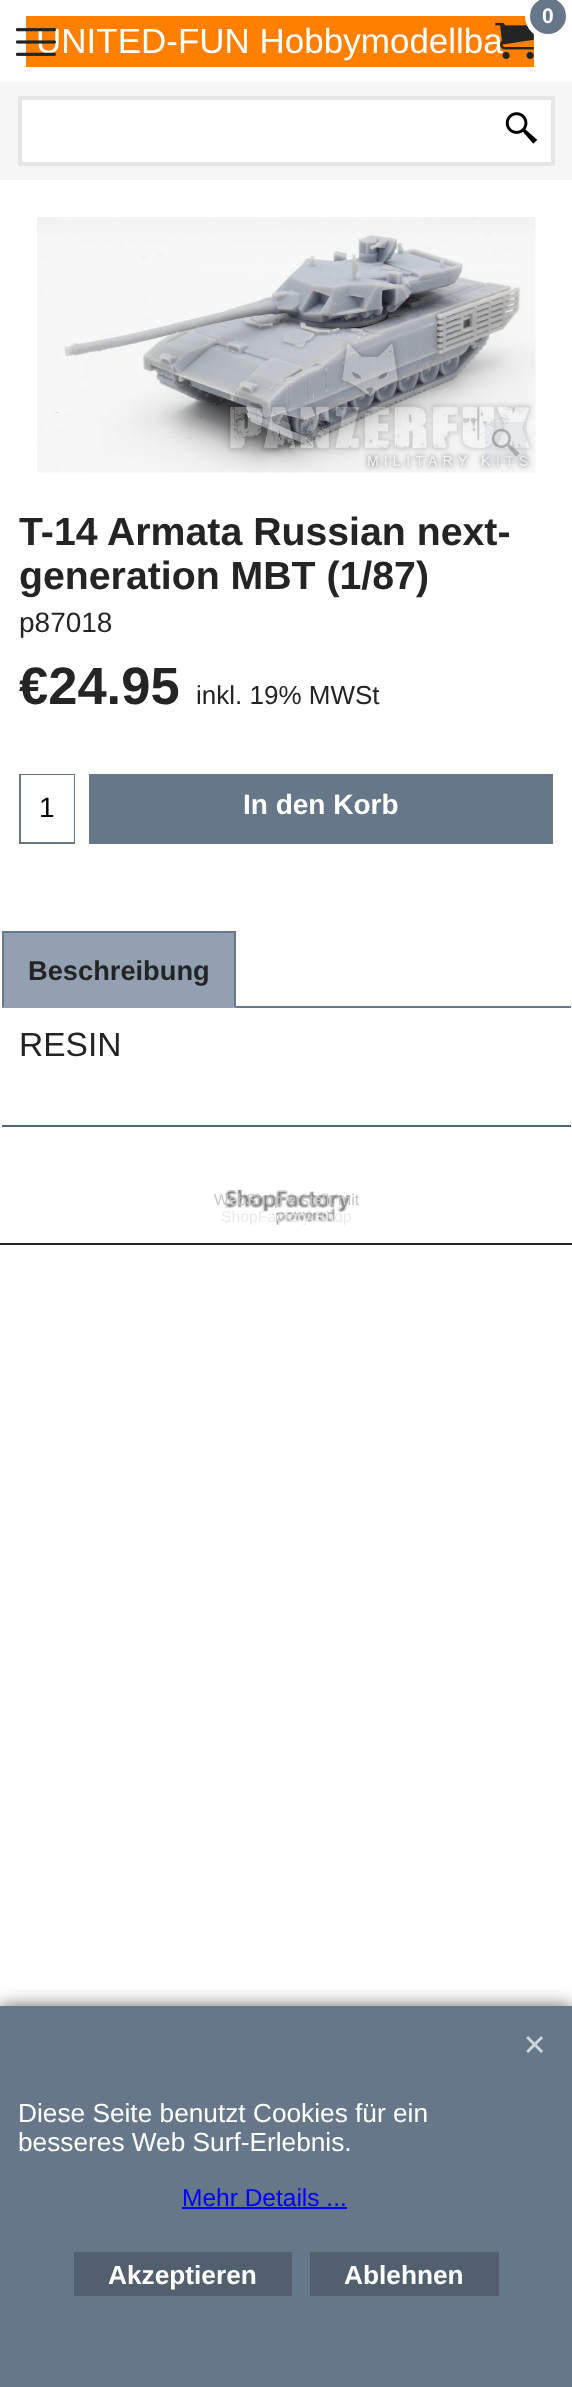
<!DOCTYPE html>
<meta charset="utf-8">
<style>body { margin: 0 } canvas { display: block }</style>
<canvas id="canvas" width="572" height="2387"></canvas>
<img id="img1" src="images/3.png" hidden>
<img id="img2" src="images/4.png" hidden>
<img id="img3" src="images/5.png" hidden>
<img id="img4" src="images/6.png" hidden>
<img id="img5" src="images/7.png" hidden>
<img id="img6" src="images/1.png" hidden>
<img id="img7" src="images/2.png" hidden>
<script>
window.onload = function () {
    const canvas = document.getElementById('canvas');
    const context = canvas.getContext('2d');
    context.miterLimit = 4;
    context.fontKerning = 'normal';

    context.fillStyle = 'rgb(255, 255, 255)';
    context.fillRect(0, 0, 572, 2387);
    context.fillStyle = 'rgb(255, 127, 0)';
    context.fillRect(26, 16, 508, 51);
    context.fillStyle = 'rgb(245, 245, 246)';
    context.fillRect(0, 82, 572, 98);
    context.fillStyle = 'rgb(255, 255, 255)';
    context.beginPath();
    context.rect(20, 98, 533, 66);
    context.fill();
    context.strokeStyle = 'rgb(230, 230, 230)';
    context.lineWidth = 4;
    context.stroke();
    context.drawImage(document.getElementById('img1'), 505, 112, 33, 32);
    context.drawImage(document.getElementById('img2'), 37, 217, 499, 256);
    context.fillStyle = 'rgba(197, 206, 216, 0.3)';
    context.fillRect(485, 422, 42, 42);
    context.drawImage(document.getElementById('img3'), 491, 428, 29, 29);
    context.fillStyle = 'rgb(102, 119, 138)';
    context.fillRect(19, 774, 56, 70);
    context.fillStyle = 'rgb(255, 255, 255)';
    context.fillRect(21, 775, 53, 67);
    context.fillStyle = 'rgb(102, 119, 138)';
    context.fillRect(89, 774, 464, 70);
    context.fillStyle = 'rgb(146, 160, 177)';
    context.fillRect(2, 933, 234, 75);
    context.fillStyle = 'rgb(102, 119, 138)';
    context.fillRect(2, 931, 234, 2);
    context.beginPath();
    context.moveTo(236, 931);
    context.lineTo(236, 1008);
    context.lineTo(234, 1006);
    context.lineTo(234, 933);
    context.closePath();
    context.fill();
    context.beginPath();
    context.moveTo(2, 1008);
    context.lineTo(2, 931);
    context.lineTo(4, 933);
    context.lineTo(4, 1006);
    context.closePath();
    context.fill();
    context.fillRect(236, 1006, 335, 2);
    context.fillStyle = 'rgb(83, 99, 119)';
    context.fillRect(2, 1125, 569, 2);
    context.drawImage(document.getElementById('img4'), 225, 1190, 126, 35);
    context.fillStyle = 'rgb(36, 36, 36)';
    context.fillRect(0, 1243, 572, 2);
    context.fillStyle = 'rgb(102, 102, 102)';
    context.filter = 'blur(9px)';
    context.beginPath();
    context.rect(0, 2006, 572, 381);
    context.fill();
    context.filter = 'none';
    context.fillStyle = 'rgb(102, 119, 138)';
    context.fillRect(0, 2006, 572, 381);
    context.drawImage(document.getElementById('img5'), 526, 2036, 17, 17);
    context.fillStyle = 'rgb(0, 0, 255)';
    context.fillRect(182, 2207, 165, 2);
    context.fillStyle = 'rgb(82, 95, 110)';
    context.fillRect(74, 2252, 218, 44);
    context.fillRect(310, 2252, 189, 44);
    context.font = '35px Liberation Sans';
    context.fillStyle = 'rgb(255, 255, 255)';
    context.fillText('UNITED-FUN Hobbymodellba', 36, 53);
    context.drawImage(document.getElementById('img6'), 495, 22, 39, 37);
    context.fillStyle = 'rgb(102, 119, 138)';
    context.beginPath();
    context.arc(548, 16, 20.5, 0, 2 * Math.PI);
    context.fill();
    context.strokeStyle = 'rgb(255, 255, 255)';
    context.lineWidth = 5;
    context.stroke();
    context.font = 'bold 21px Liberation Sans';
    context.fillStyle = 'rgb(255, 255, 255)';
    context.fillText('0', 542, 23);
    context.drawImage(document.getElementById('img7'), 16, 28, 40, 28);
    context.font = 'bold 39.25px Liberation Sans';
    context.fillStyle = 'rgb(36, 36, 36)';
    context.fillText('T-14 Armata Russian next-', 19, 545);
    context.fillText('generation MBT (1/87)', 19, 589);
    context.font = '28px Liberation Sans';
    context.fillText('p87018', 19, 632);
    context.font = 'bold 52.5px Liberation Sans';
    context.fillText('€24.95', 19, 704);
    context.font = '26px Liberation Sans';
    context.fillText('inkl. 19% MWSt', 196, 704);
    context.font = '28px Liberation Sans';
    context.fillStyle = 'rgb(0, 0, 0)';
    context.fillText('1', 39, 817);
    context.font = 'bold 28px Liberation Sans';
    context.fillStyle = 'rgb(255, 255, 255)';
    context.fillText('In den Korb', 243, 814);
    context.font = 'bold 27.25px Liberation Sans';
    context.fillStyle = 'rgb(36, 36, 36)';
    context.fillText('Beschreibung', 28, 980);
    context.font = '33.5px Liberation Sans';
    context.fillText('RESIN', 19, 1056);
    context.font = '15.75px Liberation Sans';
    context.fillStyle = 'rgb(197, 197, 197)';
    context.fillText('WebShop erstellt mit', 214, 1205);
    context.save();
    context.beginPath();
    context.rect(191, 1190, 192, 35);
    context.clip();
    context.fillStyle = 'rgb(234, 234, 234)';
    context.fillText('ShopFactory Shop', 221, 1222);
    context.restore();
    context.font = '26.25px Liberation Sans';
    context.fillStyle = 'rgb(255, 255, 255)';
    context.fillText('Diese Seite benutzt Cookies für ein', 18, 2122);
    context.fillText('besseres Web Surf-Erlebnis.', 18, 2151);
    context.font = '24.5px Liberation Sans';
    context.fillStyle = 'rgb(0, 0, 255)';
    context.fillText('Mehr Details ...', 182, 2206);
    context.font = 'bold 26.25px Liberation Sans';
    context.fillStyle = 'rgb(255, 255, 255)';
    context.fillText('Akzeptieren', 108, 2284);
    context.fillText('Ablehnen', 344, 2284);
};
</script>
